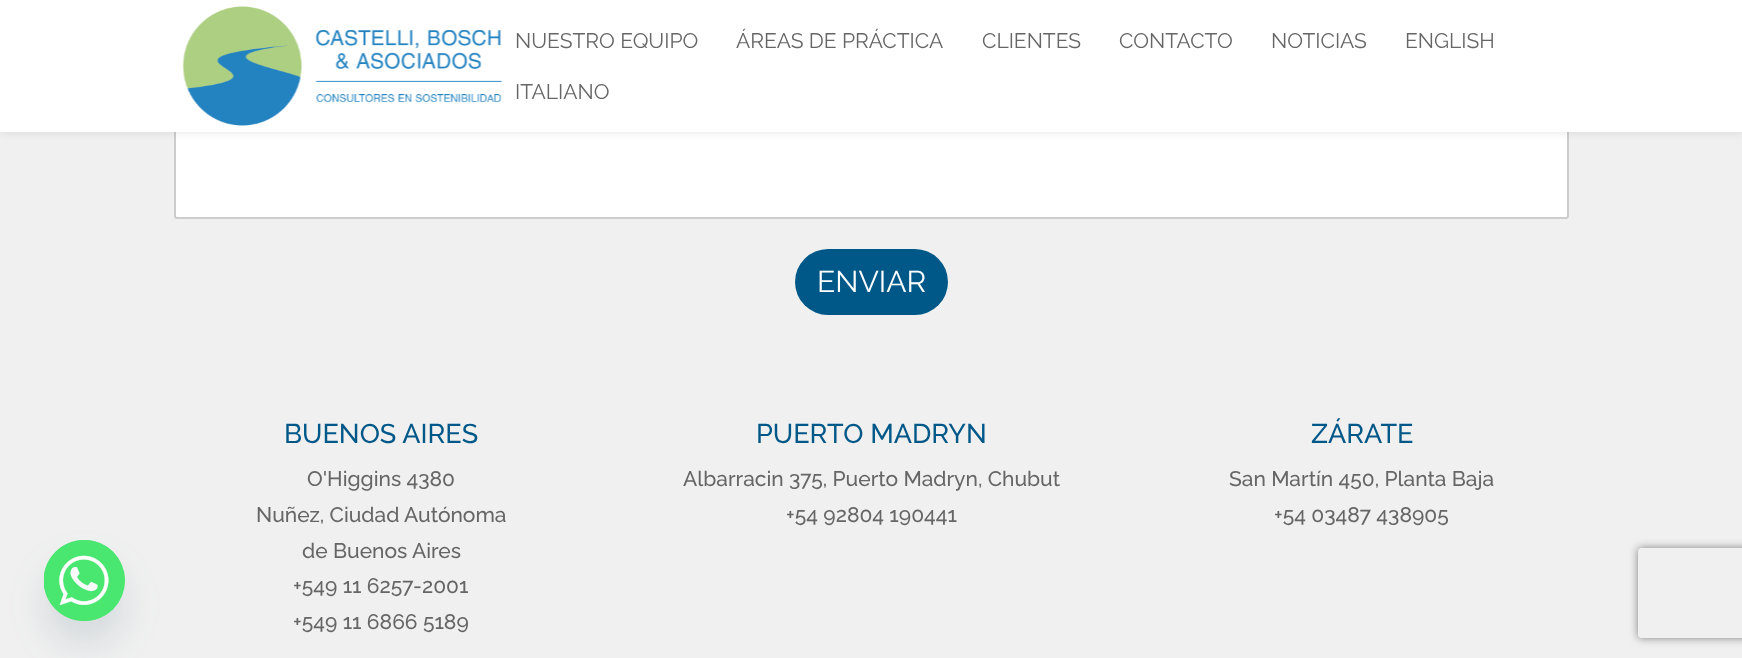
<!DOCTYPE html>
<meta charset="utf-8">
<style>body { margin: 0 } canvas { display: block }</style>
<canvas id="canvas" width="1742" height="658"></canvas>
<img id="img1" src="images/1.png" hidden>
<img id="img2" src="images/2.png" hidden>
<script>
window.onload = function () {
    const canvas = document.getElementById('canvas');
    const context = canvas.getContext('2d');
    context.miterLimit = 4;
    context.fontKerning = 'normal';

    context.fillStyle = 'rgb(240, 240, 240)';
    context.fillRect(0, 0, 1742, 658);
    context.fillStyle = 'rgba(73, 104, 126, 0.16)';
    context.filter = 'blur(18px)';
    context.beginPath();
    context.roundRect(44, 564, 81, 81, 40.5);
    context.fill();
    context.filter = 'none';
    context.fillStyle = 'rgb(73, 230, 112)';
    context.beginPath();
    context.arc(84.5, 580.5, 40.5, 0, 2 * Math.PI);
    context.fill();
    context.drawImage(document.getElementById('img1'), 44, 540, 81, 81);
    context.fillStyle = 'rgb(255, 255, 255)';
    context.beginPath();
    context.roundRect(175, 40, 1393, 178, 2);
    context.fill();
    context.strokeStyle = 'rgb(204, 204, 204)';
    context.lineWidth = 2;
    context.stroke();
    context.fillStyle = 'rgba(0, 0, 0, 0.1)';
    context.filter = 'blur(5px)';
    context.beginPath();
    context.rect(0, 0, 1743, 132);
    context.fill();
    context.filter = 'none';
    context.fillStyle = 'rgb(255, 255, 255)';
    context.fillRect(0, 0, 1742, 132);
    context.drawImage(document.getElementById('img2'), 182, 6, 321, 120);
    context.fillStyle = 'rgb(0, 88, 136)';
    context.beginPath();
    context.roundRect(795, 249, 153, 66, 33);
    context.fill();
    context.save();
    context.beginPath();
    context.moveTo(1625, 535);
    context.lineTo(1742, 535);
    context.lineTo(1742, 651);
    context.lineTo(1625, 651);
    context.closePath();
    context.moveTo(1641, 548);
    context.lineTo(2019, 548);
    context.bezierCurveTo(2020.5, 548, 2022, 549.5, 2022, 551);
    context.lineTo(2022, 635);
    context.bezierCurveTo(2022, 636.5, 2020.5, 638, 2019, 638);
    context.lineTo(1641, 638);
    context.bezierCurveTo(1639.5, 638, 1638, 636.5, 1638, 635);
    context.lineTo(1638, 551);
    context.bezierCurveTo(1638, 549.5, 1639.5, 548, 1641, 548);
    context.closePath();
    context.clip('evenodd');
    context.fillStyle = 'rgb(128, 128, 128)';
    context.filter = 'blur(4px)';
    context.beginPath();
    context.roundRect(1638, 548, 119, 90, 3);
    context.fill();
    context.filter = 'none';
    context.restore();
    context.font = '100 21px Raleway';
    context.fillStyle = 'rgb(102, 102, 102)';
    context.fillText('NUESTRO EQUIPO', 515, 48);
    context.fillText('ÁREAS DE PRÁCTICA', 736, 48);
    context.fillText('CLIENTES', 982, 48);
    context.fillText('CONTACTO', 1119, 48);
    context.fillText('NOTICIAS', 1271, 48);
    context.fillText('ENGLISH', 1405, 48);
    context.fillText('ITALIANO', 515, 99);
    context.font = '100 30px Raleway';
    context.fillStyle = 'rgb(255, 255, 255)';
    context.fillText('ENVIAR', 817, 292);
    context.font = '100 27px "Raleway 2"';
    context.fillStyle = 'rgb(0, 88, 137)';
    context.fillText('BUENOS AIRES', 284, 443);
    context.font = '100 21px "Raleway 2"';
    context.fillStyle = 'rgb(102, 102, 102)';
    context.fillText('O\'Higgins 4380', 307, 486);
    context.fillText('Nuñez, Ciudad Autónoma', 256, 522);
    context.fillText('de Buenos Aires', 302, 558);
    context.fillText('+549 11 6257-2001', 293, 593);
    context.fillText('+549 11 6866 5189', 293, 629);
    context.font = '100 27px "Raleway 2"';
    context.fillStyle = 'rgb(0, 88, 137)';
    context.fillText('PUERTO MADRYN', 756, 443);
    context.font = '100 21px "Raleway 2"';
    context.fillStyle = 'rgb(102, 102, 102)';
    context.fillText('Albarracin 375, Puerto Madryn, Chubut', 683, 486);
    context.fillText('+54 92804 190441', 786, 522);
    context.font = '100 27px "Raleway 2"';
    context.fillStyle = 'rgb(0, 88, 137)';
    context.fillText('ZÁRATE', 1311, 443);
    context.font = '100 21px "Raleway 2"';
    context.fillStyle = 'rgb(102, 102, 102)';
    context.fillText('San Martín 450, Planta Baja', 1229, 486);
    context.fillText('+54 03487 438905', 1274, 522);
};
</script>
